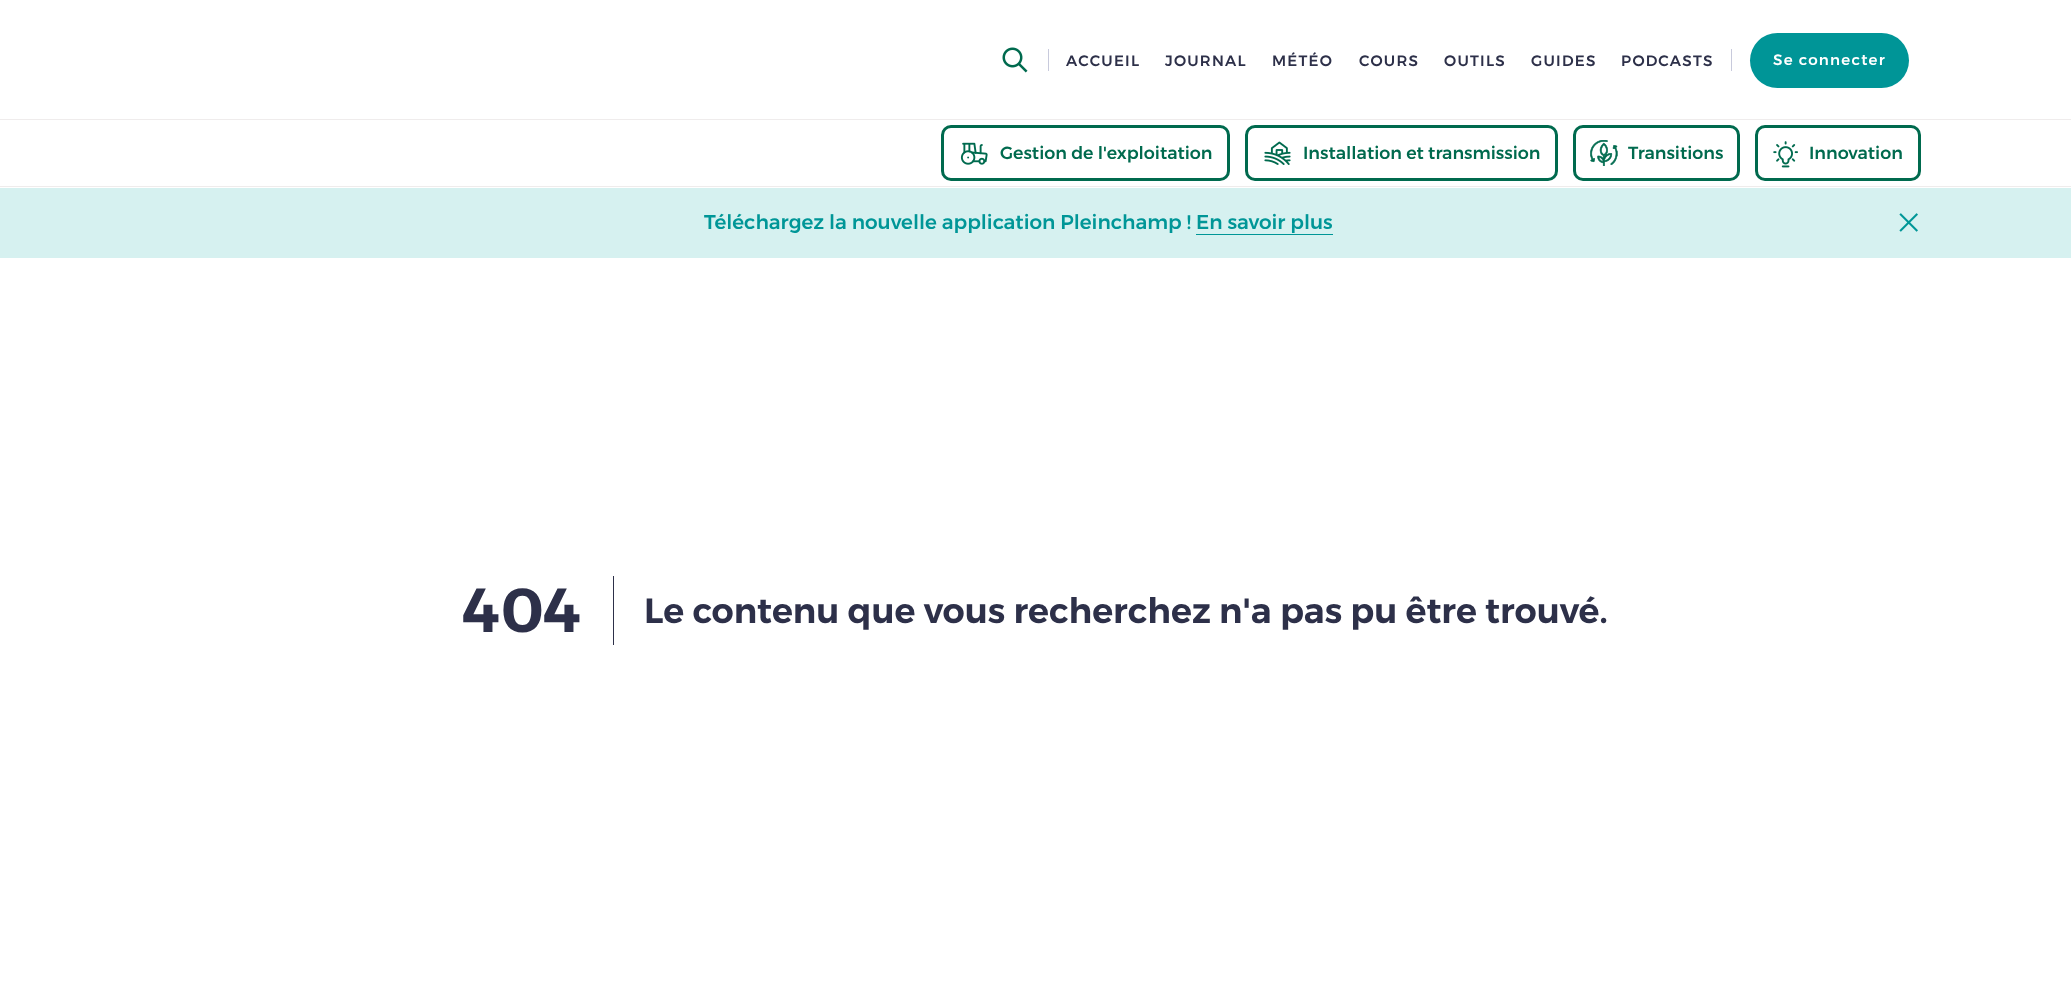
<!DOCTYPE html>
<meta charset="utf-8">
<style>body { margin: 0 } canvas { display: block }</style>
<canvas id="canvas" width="2071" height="1008"></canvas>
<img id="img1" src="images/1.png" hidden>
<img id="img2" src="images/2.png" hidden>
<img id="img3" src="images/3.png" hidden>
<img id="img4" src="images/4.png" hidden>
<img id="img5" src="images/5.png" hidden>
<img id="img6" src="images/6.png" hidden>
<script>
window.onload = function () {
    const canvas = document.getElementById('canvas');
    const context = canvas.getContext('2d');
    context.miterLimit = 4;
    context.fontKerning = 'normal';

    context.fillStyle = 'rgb(255, 255, 255)';
    context.fillRect(0, 0, 2071, 1008);
    context.fillStyle = 'rgb(239, 236, 236)';
    context.fillRect(0, 119, 2071, 1);
    context.drawImage(document.getElementById('img1'), 1002, 47, 26, 26);
    context.fillStyle = 'rgb(200, 202, 220)';
    context.fillRect(1048, 49, 1, 22);
    context.fillRect(1731, 49, 1, 22);
    context.fillStyle = 'rgb(0, 149, 151)';
    context.beginPath();
    context.roundRect(1750, 33, 159, 55, 27.5);
    context.fill();
    context.fillStyle = 'rgb(239, 236, 236)';
    context.fillRect(0, 186, 2071, 1);
    context.beginPath();
    context.roundRect(942.5, 126.5, 286, 53, 8.5);
    context.strokeStyle = 'rgb(0, 106, 78)';
    context.lineWidth = 3;
    context.stroke();
    context.drawImage(document.getElementById('img2'), 960, 142, 28, 23);
    context.beginPath();
    context.roundRect(1246.5, 126.5, 310, 53, 8.5);
    context.stroke();
    context.drawImage(document.getElementById('img3'), 1264, 141, 27, 24);
    context.beginPath();
    context.roundRect(1574.5, 126.5, 164, 53, 8.5);
    context.stroke();
    context.drawImage(document.getElementById('img4'), 1590, 140, 28, 26);
    context.beginPath();
    context.roundRect(1756.5, 126.5, 163, 53, 8.5);
    context.stroke();
    context.drawImage(document.getElementById('img5'), 1773, 141, 25, 27);
    context.fillStyle = 'rgb(214, 241, 240)';
    context.fillRect(0, 188, 2071, 70);
    context.fillStyle = 'rgb(0, 150, 151)';
    context.fillRect(1196, 234, 137, 1);
    context.drawImage(document.getElementById('img6'), 1899, 213, 19, 19);
    context.fillStyle = 'rgb(45, 48, 73)';
    context.fillRect(613, 576, 1, 69);
    context.letterSpacing = '1.25px';
    context.font = '500 15px Montserrat';
    context.fillText('ACCUEIL', 1066, 66);
    context.fillText('JOURNAL', 1165, 66);
    context.fillText('MÉTÉO', 1272, 66);
    context.fillText('COURS', 1359, 66);
    context.fillText('OUTILS', 1444, 66);
    context.fillText('GUIDES', 1531, 66);
    context.fillText('PODCASTS', 1621, 66);
    context.fillStyle = 'rgb(255, 255, 255)';
    context.fillText('Se connecter', 1773, 65);
    context.letterSpacing = '0px';
    context.font = '500 17.5px Montserrat';
    context.fillStyle = 'rgb(0, 106, 78)';
    context.fillText('Gestion de l\'exploitation', 1000, 159);
    context.fillText('Installation et transmission', 1303, 159);
    context.fillText('Transitions', 1628, 159);
    context.fillText('Innovation', 1809, 159);
    context.font = '500 20px Montserrat';
    context.fillStyle = 'rgb(0, 150, 151)';
    context.fillText('Téléchargez la nouvelle application Pleinchamp ! En savoir plus', 704, 229);
    context.font = '600 62px Montserrat';
    context.fillStyle = 'rgb(45, 48, 73)';
    context.fillText('404', 463, 632);
    context.font = '600 35px Montserrat';
    context.fillText('Le contenu que vous recherchez n\'a pas pu être trouvé.', 644, 623);
};
</script>
